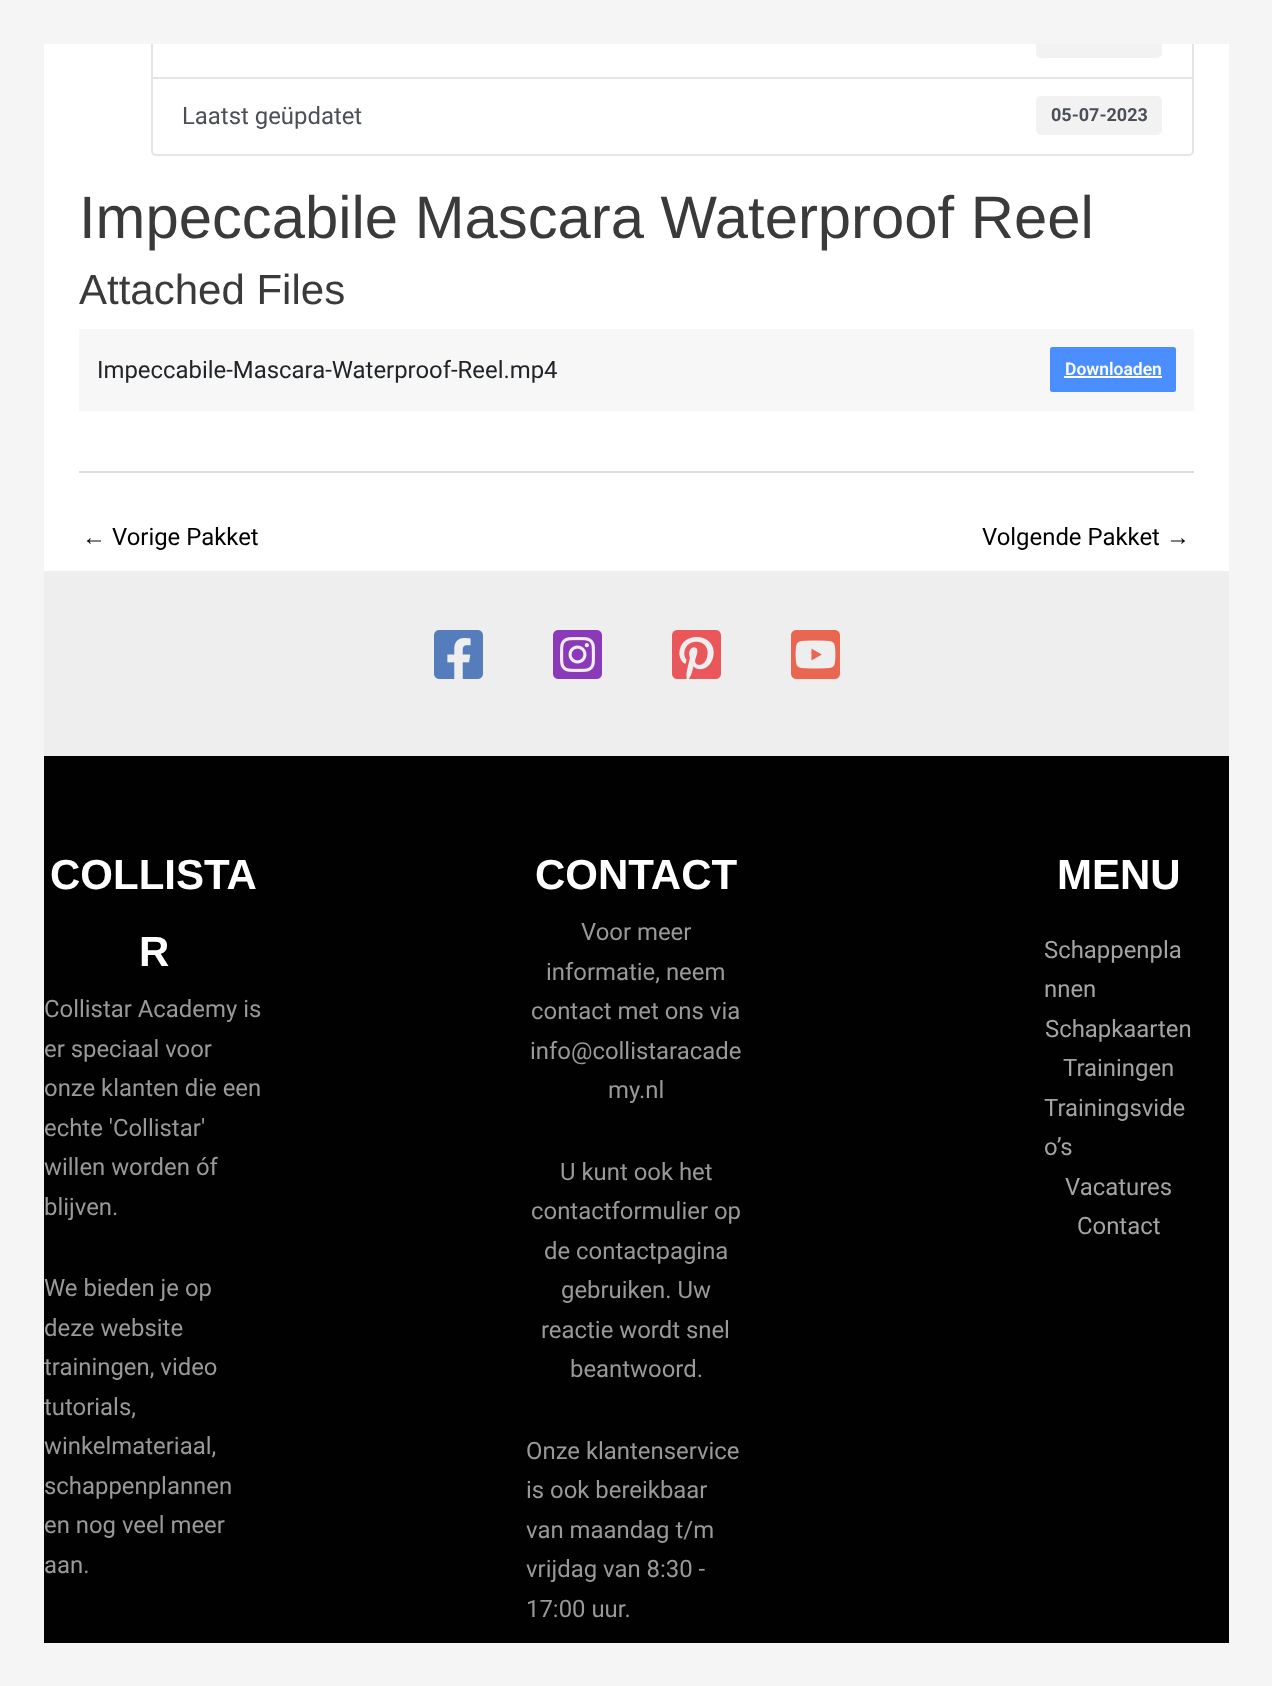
<!DOCTYPE html>
<meta charset="utf-8">
<style>body { margin: 0 } canvas { display: block }</style>
<canvas id="canvas" width="1272" height="1686"></canvas>
<img id="img1" src="images/1.png" hidden>
<img id="img2" src="images/2.png" hidden>
<img id="img3" src="images/3.png" hidden>
<img id="img4" src="images/4.png" hidden>
<script>
window.onload = function () {
    const canvas = document.getElementById('canvas');
    const context = canvas.getContext('2d');
    context.miterLimit = 4;
    context.fontKerning = 'normal';

    context.fillStyle = 'rgb(245, 245, 245)';
    context.fillRect(0, 0, 1272, 1686);
    context.fillStyle = 'rgb(255, 255, 255)';
    context.fillRect(44, 44, 1185, 527);
    context.strokeStyle = 'rgb(229, 229, 229)';
    context.lineWidth = 2;
    context.strokeRect(152, 1, 1041, 77);
    context.fillStyle = 'rgb(242, 242, 242)';
    context.beginPath();
    context.roundRect(1036, 19, 126, 39, 5);
    context.fill();
    context.fillStyle = 'rgb(245, 245, 245)';
    context.fillRect(151, 0, 1043, 44);
    context.fillStyle = 'rgb(255, 255, 255)';
    context.beginPath();
    context.roundRect(152, 78, 1041, 77, [0, 0, 4, 4]);
    context.fill();
    context.stroke();
    context.fillStyle = 'rgb(242, 242, 242)';
    context.beginPath();
    context.roundRect(1036, 96, 126, 39, 5);
    context.fill();
    context.fillStyle = 'rgb(247, 247, 247)';
    context.fillRect(79, 329, 1115, 82);
    context.fillStyle = 'rgb(74, 142, 255)';
    context.beginPath();
    context.roundRect(1050, 347, 126, 45, 2.5);
    context.fill();
    context.fillStyle = 'rgb(255, 255, 255)';
    context.fillRect(1064, 376, 98, 2);
    context.fillStyle = 'rgb(221, 221, 221)';
    context.fillRect(79, 471, 1115, 2);
    context.fillStyle = 'rgb(238, 238, 238)';
    context.fillRect(44, 571, 1185, 185);
    context.drawImage(document.getElementById('img1'), 434, 630, 49, 49);
    context.drawImage(document.getElementById('img2'), 553, 630, 49, 49);
    context.drawImage(document.getElementById('img3'), 672, 630, 49, 49);
    context.drawImage(document.getElementById('img4'), 791, 630, 49, 49);
    context.fillStyle = 'rgb(1, 1, 1)';
    context.fillRect(44, 756, 1185, 887);
    context.font = '23.9px Roboto';
    context.fillStyle = 'rgb(75, 79, 88)';
    context.fillText('Laatst geüpdatet', 182, 124);
    context.font = 'bold 18px Roboto';
    context.fillText('05-07-2023', 1051, 121);
    context.font = '59.8px Liberation Sans';
    context.fillStyle = 'rgb(58, 58, 58)';
    context.fillText('Impeccabile Mascara Waterproof Reel', 79, 238);
    context.font = '42px Liberation Sans';
    context.fillText('Attached Files', 79, 304);
    context.font = '23.9px Roboto';
    context.fillStyle = 'rgb(33, 37, 41)';
    context.fillText('Impeccabile-Mascara-Waterproof-Reel.mp4', 97, 378);
    context.font = '600 17.5px Roboto';
    context.fillStyle = 'rgb(255, 255, 255)';
    context.fillText('Downloaden', 1065, 375);
    context.font = '23.9px Liberation Sans';
    context.fillStyle = 'rgb(0, 0, 0)';
    context.fillText('←', 82, 545);
    context.font = '23.9px Roboto';
    context.fillText('Vorige Pakket', 112, 545);
    context.fillText('Volgende Pakket', 982, 545);
    context.font = '23.9px Liberation Sans';
    context.fillText('→', 1166, 545);
    context.font = 'bold 42px Liberation Sans';
    context.fillStyle = 'rgb(255, 255, 255)';
    context.fillText('COLLISTA', 50, 889);
    context.fillText('R', 139, 966);
    context.font = '23.9px Roboto';
    context.fillStyle = 'rgb(153, 153, 153)';
    context.fillText('Collistar Academy is', 44, 1017);
    context.fillText('er speciaal voor', 44, 1057);
    context.fillText('onze klanten die een', 44, 1096);
    context.fillText('echte \'Collistar\'', 44, 1136);
    context.fillText('willen worden óf', 44, 1175);
    context.fillText('blijven.', 44, 1215);
    context.fillText('We bieden je op', 44, 1296);
    context.fillText('deze website', 44, 1336);
    context.fillText('trainingen, video', 44, 1375);
    context.fillText('tutorials,', 44, 1415);
    context.fillText('winkelmateriaal,', 44, 1454);
    context.fillText('schappenplannen', 44, 1494);
    context.fillText('en nog veel meer', 44, 1533);
    context.fillText('aan.', 44, 1573);
    context.font = 'bold 42px Liberation Sans';
    context.fillStyle = 'rgb(255, 255, 255)';
    context.fillText('CONTACT', 535, 889);
    context.font = '23.9px Roboto';
    context.fillStyle = 'rgb(153, 153, 153)';
    context.fillText('Voor meer', 581, 940);
    context.fillText('informatie, neem', 546, 980);
    context.fillText('contact met ons via', 531, 1019);
    context.fillText('info@collistaracade', 530, 1059);
    context.fillText('my.nl', 608, 1098);
    context.fillText('U kunt ook het', 560, 1180);
    context.fillText('contactformulier op', 531, 1219);
    context.fillText('de contactpagina', 544, 1259);
    context.fillText('gebruiken. Uw', 561, 1298);
    context.fillText('reactie wordt snel', 541, 1338);
    context.fillText('beantwoord.', 570, 1377);
    context.fillText('Onze klantenservice', 526, 1459);
    context.fillText('is ook bereikbaar', 526, 1498);
    context.fillText('van maandag t/m', 526, 1538);
    context.fillText('vrijdag van 8:30 -', 526, 1577);
    context.fillText('17:00 uur.', 526, 1617);
    context.font = 'bold 42px Liberation Sans';
    context.fillStyle = 'rgb(255, 255, 255)';
    context.fillText('MENU', 1057, 889);
    context.font = '23.9px Roboto';
    context.fillStyle = 'rgb(164, 164, 164)';
    context.fillText('Schappenpla', 1044, 958);
    context.fillText('nnen', 1044, 997);
    context.fillText('Schapkaarten', 1045, 1037);
    context.fillText('Trainingen', 1063, 1076);
    context.fillText('Trainingsvide', 1044, 1116);
    context.fillText('o’s', 1044, 1155);
    context.fillText('Vacatures', 1065, 1195);
    context.fillText('Contact', 1077, 1234);
};
</script>
